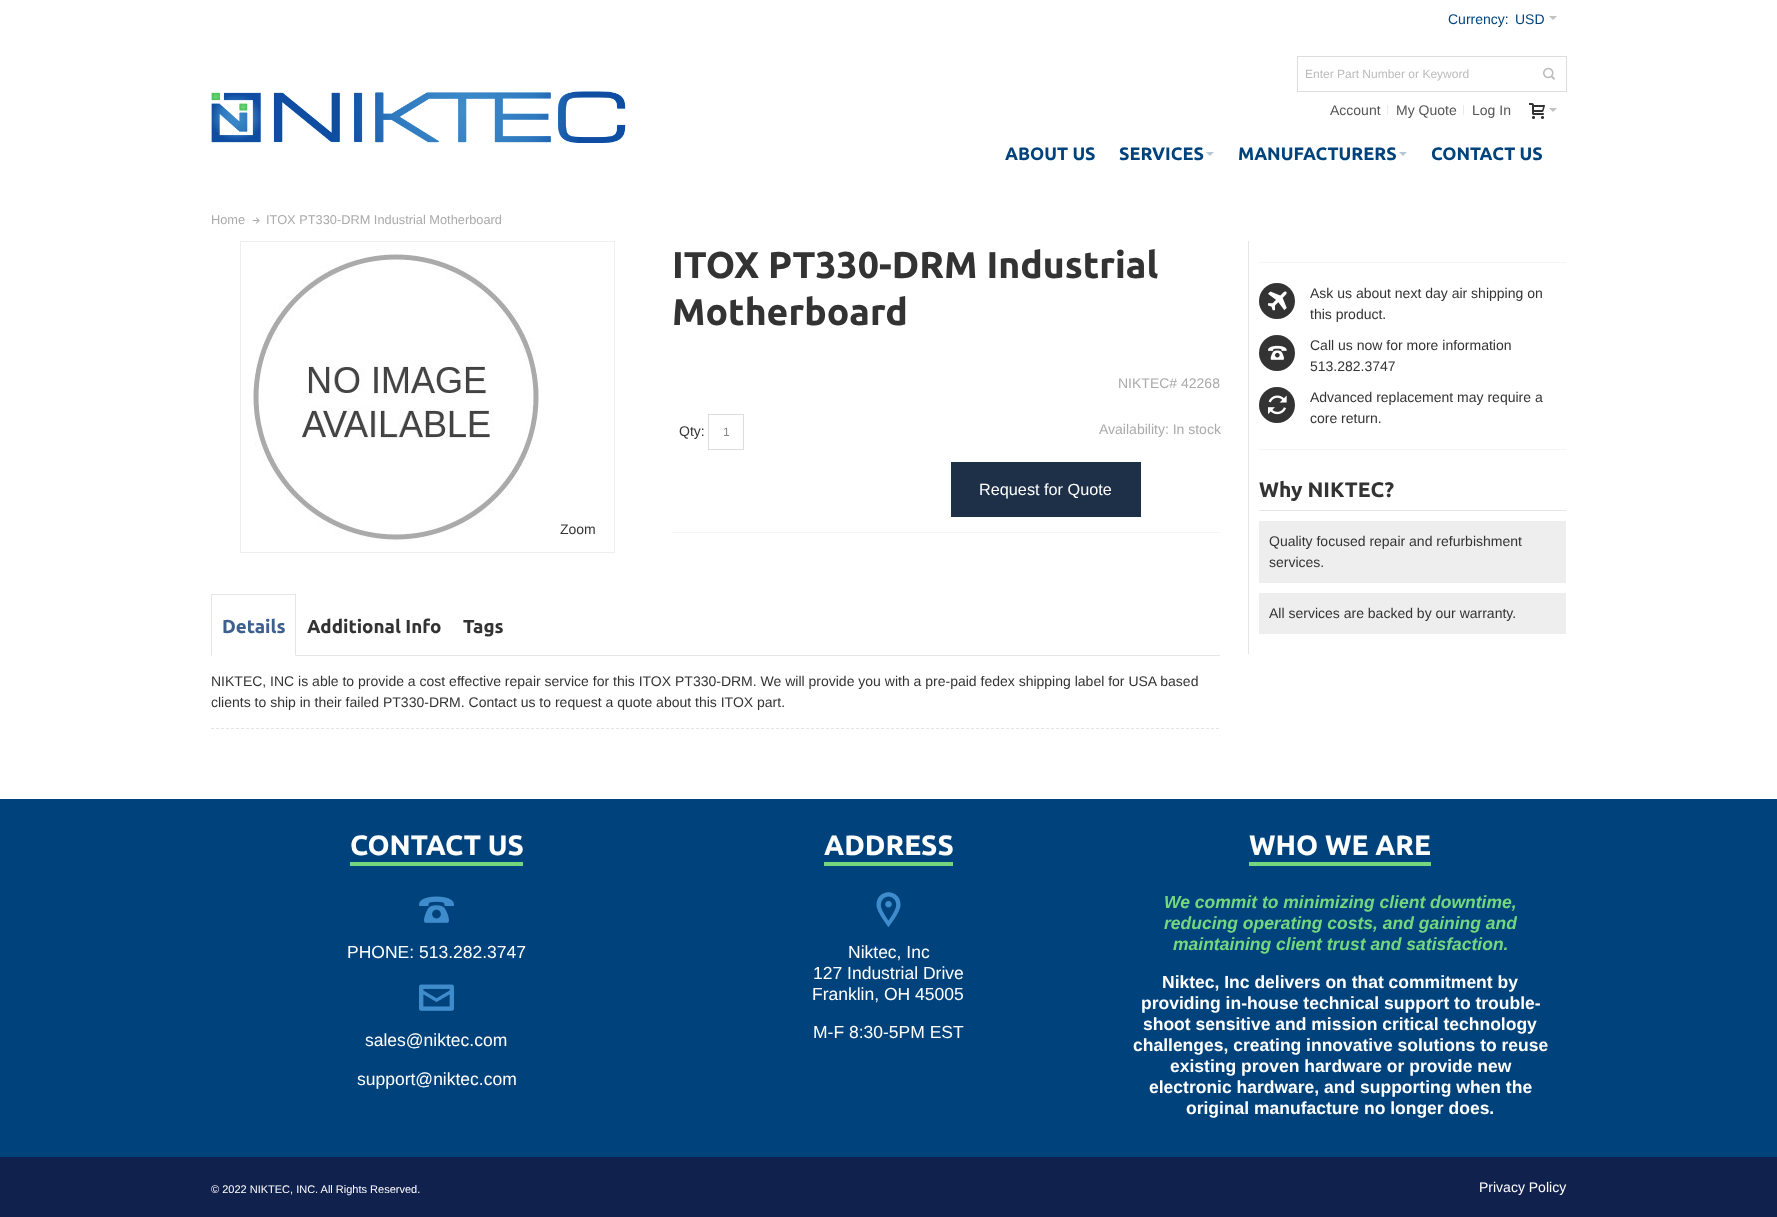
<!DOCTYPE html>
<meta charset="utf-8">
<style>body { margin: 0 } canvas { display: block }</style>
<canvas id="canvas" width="1777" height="1217"></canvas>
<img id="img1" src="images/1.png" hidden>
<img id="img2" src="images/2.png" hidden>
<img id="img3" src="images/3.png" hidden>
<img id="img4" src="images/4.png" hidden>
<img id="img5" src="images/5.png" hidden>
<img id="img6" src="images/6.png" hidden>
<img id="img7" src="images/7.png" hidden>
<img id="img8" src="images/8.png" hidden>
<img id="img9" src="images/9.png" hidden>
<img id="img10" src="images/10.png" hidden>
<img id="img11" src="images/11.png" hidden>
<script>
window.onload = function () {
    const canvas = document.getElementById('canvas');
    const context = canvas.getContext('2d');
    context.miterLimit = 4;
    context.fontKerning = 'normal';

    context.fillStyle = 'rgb(255, 255, 255)';
    context.fillRect(0, 0, 1777, 1217);
    context.fillStyle = 'rgb(194, 194, 194)';
    context.beginPath();
    context.moveTo(1549, 16);
    context.lineTo(1557, 16);
    context.lineTo(1553, 20);
    context.closePath();
    context.fill();
    context.drawImage(document.getElementById('img1'), 211, 91, 415, 52);
    context.strokeStyle = 'rgb(221, 221, 221)';
    context.strokeRect(1297.5, 56.5, 269, 35);
    context.drawImage(document.getElementById('img2'), 1543, 67, 12, 13);
    context.fillStyle = 'rgb(235, 235, 235)';
    context.fillRect(1387, 105, 1, 10);
    context.fillRect(1463, 105, 1, 10);
    context.drawImage(document.getElementById('img3'), 1529, 103, 16, 16);
    context.fillStyle = 'rgb(194, 194, 194)';
    context.beginPath();
    context.moveTo(1549, 108);
    context.lineTo(1557, 108);
    context.lineTo(1553, 112);
    context.closePath();
    context.fill();
    context.fillStyle = 'rgb(179, 199, 216)';
    context.beginPath();
    context.moveTo(1206, 152);
    context.lineTo(1214, 152);
    context.lineTo(1210, 156);
    context.closePath();
    context.fill();
    context.beginPath();
    context.moveTo(1399, 152);
    context.lineTo(1407, 152);
    context.lineTo(1403, 156);
    context.closePath();
    context.fill();
    context.drawImage(document.getElementById('img4'), 252, 217, 8, 7);
    context.strokeStyle = 'rgb(238, 238, 238)';
    context.strokeRect(240.5, 241.5, 374, 311);
    context.drawImage(document.getElementById('img5'), 248, 254, 293, 287);
    context.fillStyle = 'rgb(245, 245, 245)';
    context.fillRect(672, 532, 548, 1);
    context.strokeStyle = 'rgb(221, 221, 221)';
    context.strokeRect(708.5, 414.5, 35, 35);
    context.fillStyle = 'rgb(30, 48, 72)';
    context.fillRect(951, 462, 190, 55);
    context.fillStyle = 'rgb(229, 229, 229)';
    context.fillRect(1248, 241, 1, 413);
    context.fillStyle = 'rgb(245, 245, 245)';
    context.fillRect(1259, 262, 307, 1);
    context.fillStyle = 'rgb(51, 51, 51)';
    context.beginPath();
    context.arc(1277, 301, 18, 0, 2 * Math.PI);
    context.fill();
    context.drawImage(document.getElementById('img6'), 1268, 291, 19, 20);
    context.beginPath();
    context.arc(1277, 353, 18, 0, 2 * Math.PI);
    context.fill();
    context.drawImage(document.getElementById('img7'), 1268, 345, 19, 15);
    context.beginPath();
    context.arc(1277, 405, 18, 0, 2 * Math.PI);
    context.fill();
    context.drawImage(document.getElementById('img8'), 1268, 395, 19, 20);
    context.fillStyle = 'rgb(245, 245, 245)';
    context.fillRect(1259, 449, 307, 1);
    context.fillStyle = 'rgb(229, 229, 229)';
    context.fillRect(1259, 510, 307, 1);
    context.fillStyle = 'rgb(238, 238, 238)';
    context.fillRect(1259, 521, 307, 62);
    context.fillRect(1259, 593, 307, 41);
    context.fillStyle = 'rgb(229, 229, 229)';
    context.fillRect(211, 594, 85, 1);
    context.beginPath();
    context.moveTo(296, 594);
    context.lineTo(296, 656);
    context.lineTo(295, 655);
    context.lineTo(295, 595);
    context.closePath();
    context.fill();
    context.beginPath();
    context.moveTo(211, 656);
    context.lineTo(211, 594);
    context.lineTo(212, 595);
    context.lineTo(212, 655);
    context.closePath();
    context.fill();
    context.fillRect(296, 655, 924, 1);
    context.beginPath();
    context.moveTo(211, 728.5);
    context.lineTo(1220, 728.5);
    context.strokeStyle = 'rgb(229, 229, 229)';
    context.setLineDash([3, 2]);
    context.stroke();
    context.fillStyle = 'rgb(0, 67, 124)';
    context.fillRect(0, 799, 1777, 358);
    context.fillStyle = 'rgb(115, 215, 126)';
    context.fillRect(350, 862, 173, 4);
    context.drawImage(document.getElementById('img9'), 419, 896, 35, 27);
    context.drawImage(document.getElementById('img10'), 419, 984, 35, 27);
    context.fillRect(824, 862, 129, 4);
    context.drawImage(document.getElementById('img11'), 876, 892, 25, 35);
    context.fillRect(1249, 862, 182, 4);
    context.fillStyle = 'rgb(17, 33, 78)';
    context.fillRect(0, 1157, 1777, 60);
    context.font = '14px Liberation Sans';
    context.fillStyle = 'rgb(0, 67, 124)';
    context.fillText('Currency:', 1448, 24);
    context.fillText('USD', 1515, 24);
    context.font = '12px Liberation Sans';
    context.fillStyle = 'rgb(187, 187, 187)';
    context.fillText('Enter Part Number or Keyword', 1305, 78);
    context.font = '14px Liberation Sans';
    context.fillStyle = 'rgb(85, 85, 85)';
    context.fillText('Account', 1330, 115);
    context.fillText('My Quote', 1396, 115);
    context.fillText('Log In', 1472, 115);
    context.font = 'bold 18px Ubuntu';
    context.fillStyle = 'rgb(0, 67, 124)';
    context.fillText('ABOUT US', 1005, 160);
    context.fillText('SERVICES', 1119, 160);
    context.fillText('MANUFACTURERS', 1238, 160);
    context.fillText('CONTACT US', 1431, 160);
    context.font = '12.8px Liberation Sans';
    context.fillStyle = 'rgb(170, 170, 170)';
    context.fillText('Home', 211, 224);
    context.fillText('ITOX PT330-DRM Industrial Motherboard', 266, 224);
    context.font = '14px Liberation Sans';
    context.fillStyle = 'rgb(51, 51, 51)';
    context.fillText('Zoom', 560, 534);
    context.font = 'bold 37.3px Ubuntu';
    context.fillText('ITOX PT330-DRM Industrial', 672, 278);
    context.fillText('Motherboard', 672, 325);
    context.font = '14px Liberation Sans';
    context.fillStyle = 'rgb(170, 170, 170)';
    context.fillText('NIKTEC# 42268', 1118, 388);
    context.fillText('Availability: In stock', 1099, 434);
    context.fillStyle = 'rgb(51, 51, 51)';
    context.fillText('Qty:', 679, 436);
    context.font = '12px Liberation Sans';
    context.fillStyle = 'rgb(136, 136, 136)';
    context.fillText('1', 723, 436);
    context.font = '16.25px Liberation Sans';
    context.fillStyle = 'rgb(255, 255, 255)';
    context.fillText('Request for Quote', 979, 495);
    context.font = '14px Liberation Sans';
    context.fillStyle = 'rgb(51, 51, 51)';
    context.fillText('Ask us about next day air shipping on', 1310, 298);
    context.fillText('this product.', 1310, 319);
    context.fillText('Call us now for more information', 1310, 350);
    context.fillText('513.282.3747', 1310, 371);
    context.fillText('Advanced replacement may require a', 1310, 402);
    context.fillText('core return.', 1310, 423);
    context.font = 'bold 21px Ubuntu';
    context.fillText('Why NIKTEC?', 1259, 497);
    context.font = '14px Liberation Sans';
    context.fillText('Quality focused repair and refurbishment', 1269, 546);
    context.fillText('services.', 1269, 567);
    context.fillText('All services are backed by our warranty.', 1269, 618);
    context.font = 'bold 18.75px Ubuntu';
    context.fillStyle = 'rgb(62, 96, 143)';
    context.fillText('Details', 222, 633);
    context.fillStyle = 'rgb(51, 51, 51)';
    context.fillText('Additional Info', 307, 633);
    context.fillText('Tags', 463, 633);
    context.font = '14px Liberation Sans';
    context.fillText('NIKTEC, INC is able to provide a cost effective repair service for this ITOX PT330-DRM. We will provide you with a pre-paid fedex shipping label for USA based', 211, 686);
    context.fillText('clients to ship in their failed PT330-DRM. Contact us to request a quote about this ITOX part.', 211, 707);
    context.font = 'bold 28px Ubuntu';
    context.fillStyle = 'rgb(255, 255, 255)';
    context.fillText('CONTACT US', 350, 855);
    context.font = '17.5px Liberation Sans';
    context.fillText('PHONE: 513.282.3747', 347, 958);
    context.fillText('sales@niktec.com', 365, 1046);
    context.fillText('support@niktec.com', 357, 1085);
    context.font = 'bold 28px Ubuntu';
    context.fillText('ADDRESS', 824, 855);
    context.font = '17.5px Liberation Sans';
    context.fillText('Niktec, Inc', 848, 958);
    context.fillText('127 Industrial Drive', 813, 979);
    context.fillText('Franklin, OH 45005', 812, 1000);
    context.fillText('M-F 8:30-5PM EST', 813, 1038);
    context.font = 'bold 28px Ubuntu';
    context.fillText('WHO WE ARE', 1249, 855);
    context.font = 'italic bold 17.5px Liberation Sans';
    context.fillStyle = 'rgb(115, 215, 126)';
    context.fillText('We commit to minimizing client downtime,', 1164, 908);
    context.fillText('reducing operating costs, and gaining and', 1164, 929);
    context.fillText('maintaining client trust and satisfaction.', 1173, 950);
    context.font = 'bold 17.5px Liberation Sans';
    context.fillStyle = 'rgb(255, 255, 255)';
    context.fillText('Niktec, Inc delivers on that commitment by', 1162, 988);
    context.fillText('providing in-house technical support to trouble-', 1141, 1009);
    context.fillText('shoot sensitive and mission critical technology', 1143, 1030);
    context.fillText('challenges, creating innovative solutions to reuse', 1133, 1051);
    context.fillText('existing proven hardware or provide new', 1170, 1072);
    context.fillText('electronic hardware, and supporting when the', 1149, 1093);
    context.fillText('original manufacture no longer does.', 1186, 1114);
    context.font = '11px Liberation Sans';
    context.fillText('© 2022 NIKTEC, INC. All Rights Reserved.', 211, 1193);
    context.font = '14px Liberation Sans';
    context.fillText('Privacy Policy', 1479, 1192);
};
</script>
